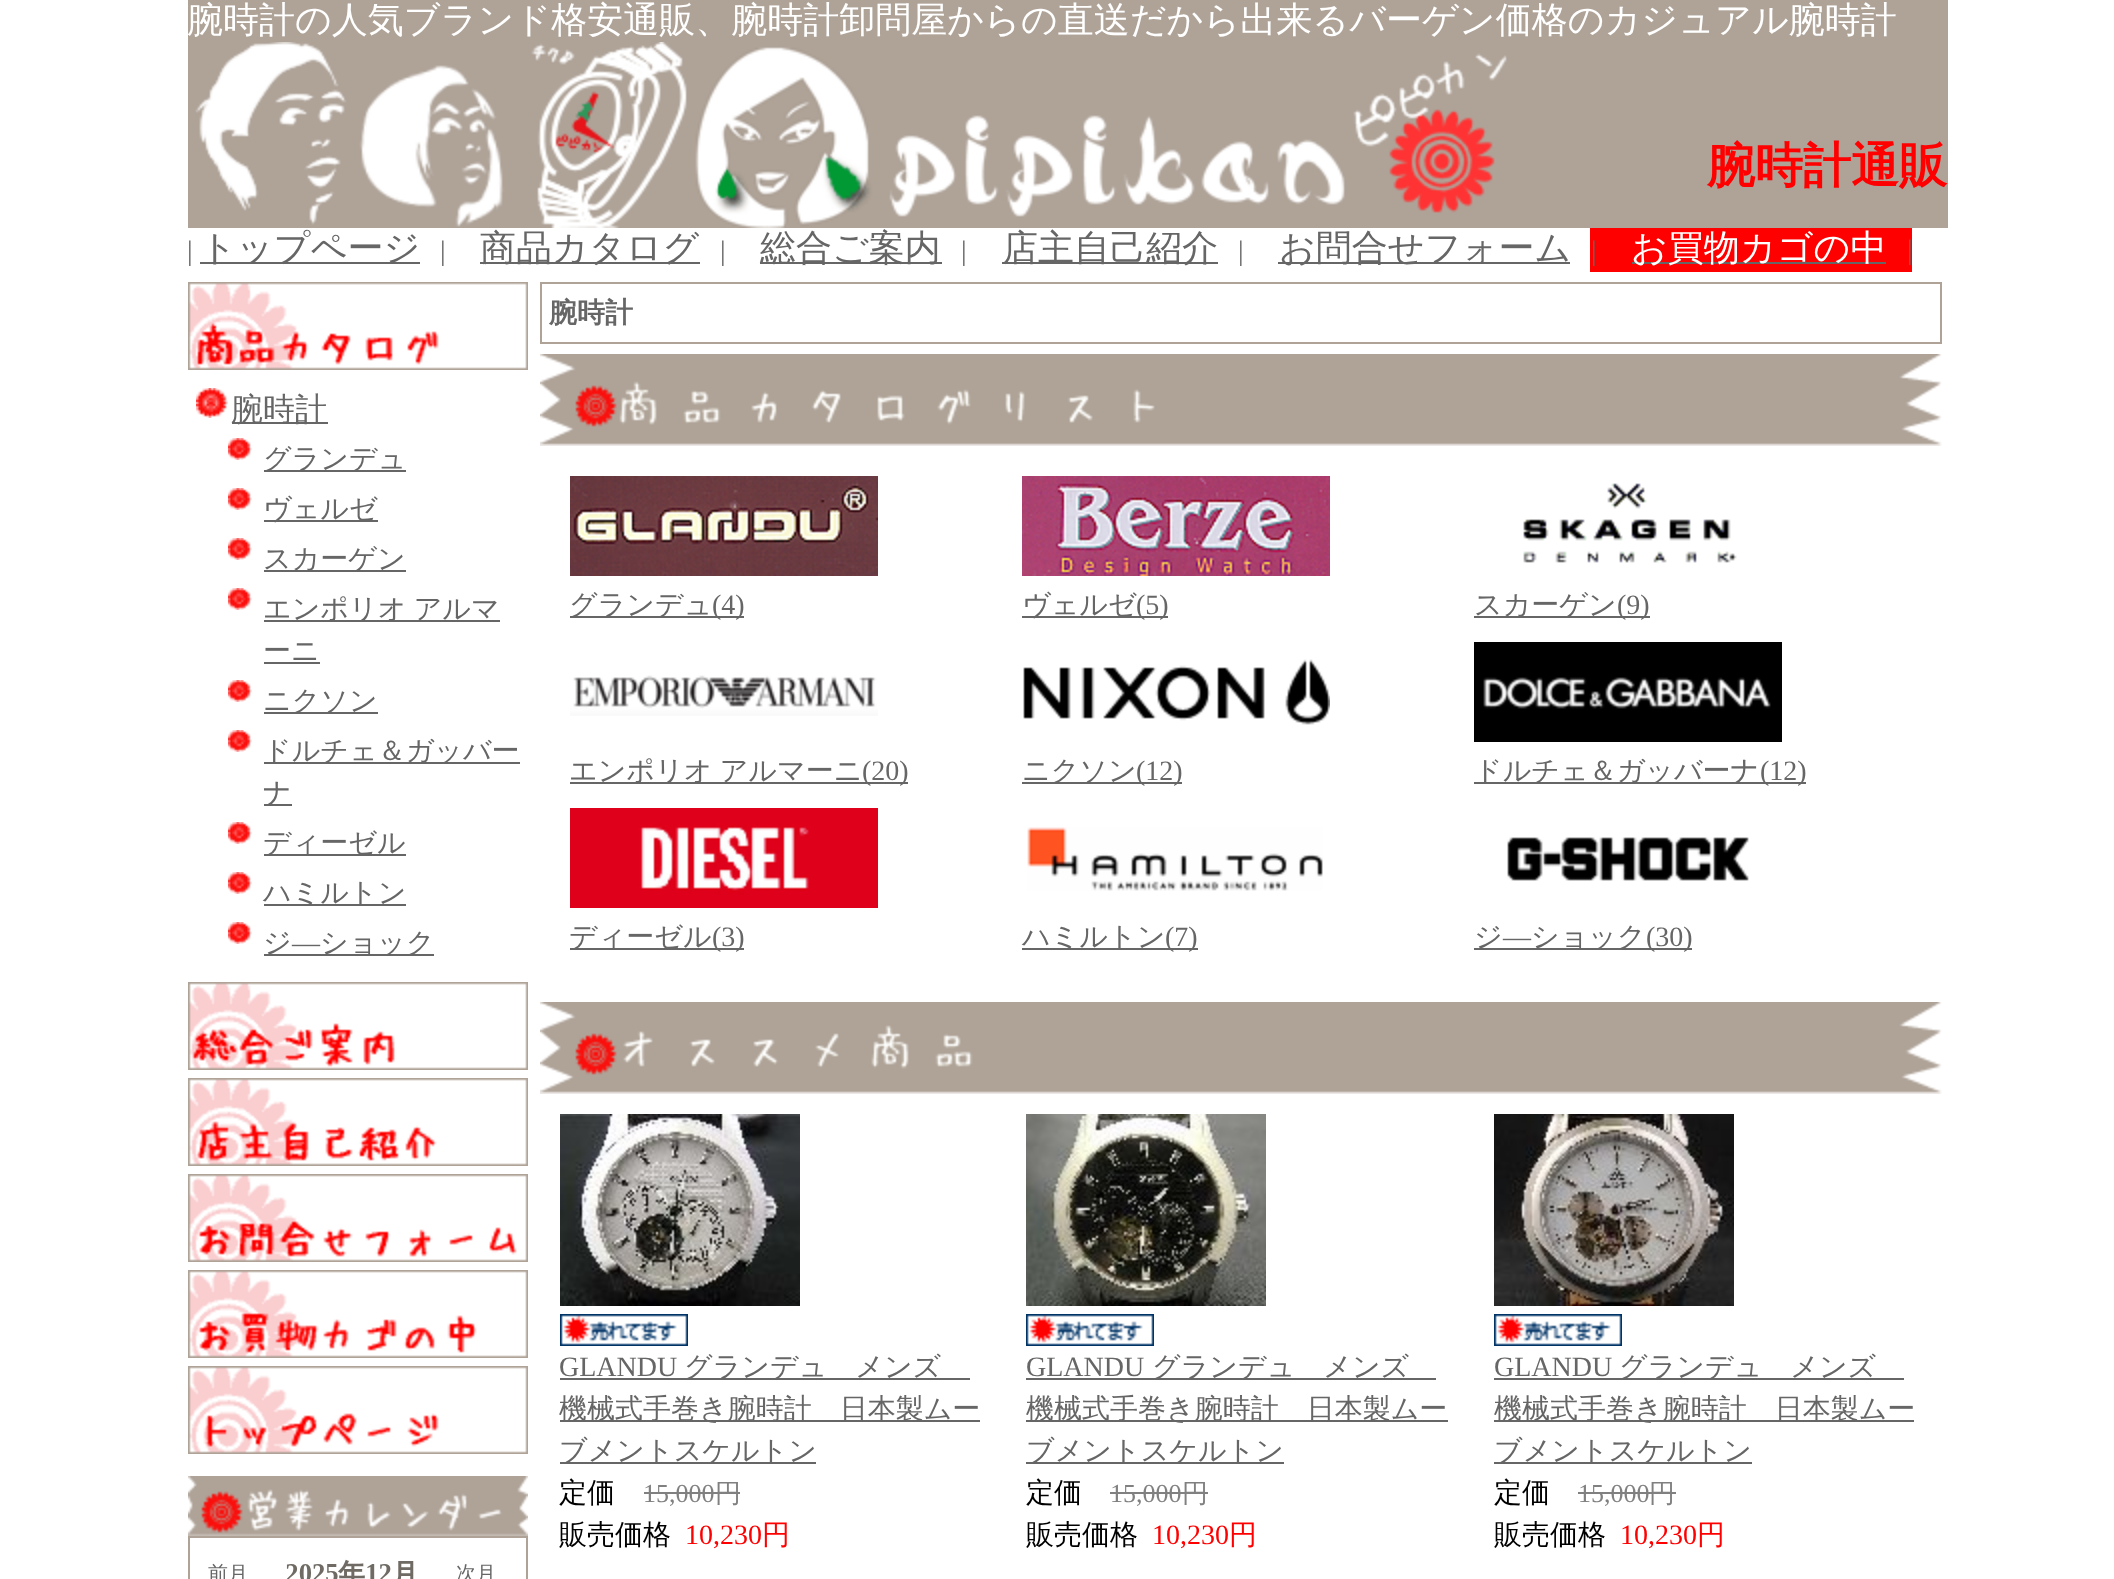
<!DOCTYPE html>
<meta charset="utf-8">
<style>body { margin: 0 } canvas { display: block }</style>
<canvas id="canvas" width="2114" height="1579"></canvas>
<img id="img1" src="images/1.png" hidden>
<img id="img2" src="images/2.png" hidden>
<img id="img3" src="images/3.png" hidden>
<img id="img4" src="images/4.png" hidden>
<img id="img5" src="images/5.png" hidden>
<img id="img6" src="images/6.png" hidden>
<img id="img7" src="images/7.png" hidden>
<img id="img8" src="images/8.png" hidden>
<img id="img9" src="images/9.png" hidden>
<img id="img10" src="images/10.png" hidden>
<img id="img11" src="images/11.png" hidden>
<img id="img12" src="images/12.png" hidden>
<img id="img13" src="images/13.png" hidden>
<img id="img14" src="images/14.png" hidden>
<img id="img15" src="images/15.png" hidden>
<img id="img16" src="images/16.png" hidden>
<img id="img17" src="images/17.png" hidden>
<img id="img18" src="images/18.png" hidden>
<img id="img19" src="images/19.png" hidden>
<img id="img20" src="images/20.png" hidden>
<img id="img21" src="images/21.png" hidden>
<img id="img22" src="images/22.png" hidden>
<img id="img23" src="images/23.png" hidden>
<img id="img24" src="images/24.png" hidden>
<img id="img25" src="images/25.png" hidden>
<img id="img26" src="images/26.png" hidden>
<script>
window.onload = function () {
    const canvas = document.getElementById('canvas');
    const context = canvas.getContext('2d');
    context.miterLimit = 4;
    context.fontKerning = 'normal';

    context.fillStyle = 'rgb(255, 255, 255)';
    context.fillRect(0, 0, 2114, 1579);
    context.fillStyle = 'rgb(175, 163, 152)';
    context.fillRect(188, 0, 1760, 42);
    context.drawImage(document.getElementById('img1'), 188, 42, 1328, 186);
    context.fillRect(1516, 42, 432, 186);
    context.fillStyle = 'rgb(102, 102, 102)';
    context.fillRect(200, 262, 220, 2);
    context.fillRect(480, 262, 220, 2);
    context.fillRect(760, 262, 182, 2);
    context.fillRect(1002, 262, 216, 2);
    context.fillRect(1278, 262, 292, 2);
    context.fillStyle = 'rgb(255, 0, 0)';
    context.fillRect(1590, 228, 322, 44);
    context.fillStyle = 'rgb(102, 102, 102)';
    context.fillRect(1632, 262, 254, 2);
    context.drawImage(document.getElementById('img2'), 188, 282, 340, 88);
    context.drawImage(document.getElementById('img3'), 196, 388, 32, 30);
    context.fillRect(232, 422, 96, 2);
    context.drawImage(document.getElementById('img4'), 228, 438, 24, 22);
    context.fillRect(264, 470, 142, 2);
    context.drawImage(document.getElementById('img4'), 228, 488, 24, 22);
    context.fillRect(264, 520, 114, 2);
    context.drawImage(document.getElementById('img4'), 228, 538, 24, 22);
    context.fillRect(264, 570, 142, 2);
    context.drawImage(document.getElementById('img4'), 228, 588, 24, 22);
    context.fillRect(264, 620, 236, 2);
    context.fillRect(264, 662, 56, 2);
    context.drawImage(document.getElementById('img4'), 228, 680, 24, 22);
    context.fillRect(264, 712, 114, 2);
    context.drawImage(document.getElementById('img4'), 228, 730, 24, 22);
    context.fillRect(264, 762, 256, 2);
    context.fillRect(264, 804, 28, 2);
    context.drawImage(document.getElementById('img4'), 228, 822, 24, 22);
    context.fillRect(264, 854, 142, 2);
    context.drawImage(document.getElementById('img4'), 228, 872, 24, 22);
    context.fillRect(264, 904, 142, 2);
    context.drawImage(document.getElementById('img4'), 228, 922, 24, 22);
    context.fillRect(264, 954, 170, 2);
    context.drawImage(document.getElementById('img5'), 188, 982, 340, 88);
    context.drawImage(document.getElementById('img6'), 188, 1078, 340, 88);
    context.drawImage(document.getElementById('img7'), 188, 1174, 340, 88);
    context.drawImage(document.getElementById('img8'), 188, 1270, 340, 88);
    context.drawImage(document.getElementById('img9'), 188, 1366, 340, 88);
    context.drawImage(document.getElementById('img10'), 188, 1476, 340, 60);
    context.fillStyle = 'rgb(175, 163, 152)';
    context.fillRect(188, 1536, 340, 43);
    context.fillStyle = 'rgb(255, 255, 255)';
    context.fillRect(190, 1538, 336, 41);
    context.drawImage(document.getElementById('img11'), 208, 1559, 284, 20);
    context.strokeStyle = 'rgb(175, 163, 152)';
    context.lineWidth = 2;
    context.strokeRect(541, 283, 1400, 60);
    context.drawImage(document.getElementById('img12'), 540, 354, 1402, 92);
    context.drawImage(document.getElementById('img13'), 570, 476, 308, 100);
    context.fillStyle = 'rgb(102, 102, 102)';
    context.fillRect(570, 616, 174, 2);
    context.drawImage(document.getElementById('img14'), 1022, 476, 308, 100);
    context.fillRect(1022, 616, 146, 2);
    context.drawImage(document.getElementById('img15'), 1523, 483, 214, 80);
    context.fillRect(1474, 616, 176, 2);
    context.drawImage(document.getElementById('img16'), 570, 675, 308, 41);
    context.fillRect(570, 782, 338, 2);
    context.drawImage(document.getElementById('img17'), 1023, 659, 307, 66);
    context.fillRect(1022, 782, 160, 2);
    context.drawImage(document.getElementById('img18'), 1474, 642, 308, 100);
    context.fillRect(1474, 782, 332, 2);
    context.drawImage(document.getElementById('img19'), 570, 808, 308, 100);
    context.fillRect(570, 948, 174, 2);
    context.drawImage(document.getElementById('img20'), 1027, 827, 296, 64);
    context.fillRect(1022, 948, 176, 2);
    context.drawImage(document.getElementById('img21'), 1507, 837, 242, 44);
    context.fillRect(1474, 948, 218, 2);
    context.drawImage(document.getElementById('img22'), 540, 1002, 1402, 92);
    context.drawImage(document.getElementById('img23'), 560, 1114, 240, 192);
    context.drawImage(document.getElementById('img24'), 560, 1314, 128, 32);
    context.fillRect(560, 1378, 410, 2);
    context.fillRect(560, 1420, 420, 2);
    context.fillRect(560, 1462, 256, 2);
    context.fillStyle = 'rgb(128, 128, 128)';
    context.fillRect(644, 1492, 96, 2);
    context.drawImage(document.getElementById('img25'), 1026, 1114, 240, 192);
    context.drawImage(document.getElementById('img24'), 1026, 1314, 128, 32);
    context.fillStyle = 'rgb(102, 102, 102)';
    context.fillRect(1026, 1378, 382, 2);
    context.fillRect(1408, 1378, 28, 2);
    context.fillRect(1026, 1420, 422, 2);
    context.fillRect(1026, 1462, 258, 2);
    context.fillStyle = 'rgb(128, 128, 128)';
    context.fillRect(1110, 1492, 98, 2);
    context.drawImage(document.getElementById('img26'), 1494, 1114, 240, 192);
    context.drawImage(document.getElementById('img24'), 1494, 1314, 128, 32);
    context.fillStyle = 'rgb(102, 102, 102)';
    context.fillRect(1494, 1378, 410, 2);
    context.fillRect(1494, 1420, 420, 2);
    context.fillRect(1494, 1462, 258, 2);
    context.fillStyle = 'rgb(128, 128, 128)';
    context.fillRect(1578, 1492, 98, 2);
    context.font = '500 36px WenQuanYi Zen Hei';
    context.fillStyle = 'rgb(255, 255, 255)';
    context.fillText('腕時計の人気ブランド格安通販、腕時計卸問屋からの直送だから出来るバーゲン価格のカジュアル腕時計', 187, 32);
    context.font = 'bold 48px WenQuanYi Zen Hei';
    context.fillStyle = 'rgb(255, 0, 0)';
    context.fillText('腕時計通販', 1707, 182);
    context.font = '28px Liberation Serif';
    context.fillStyle = 'rgb(102, 102, 102)';
    context.fillText('|', 187, 260);
    context.font = '500 36px WenQuanYi Zen Hei';
    context.fillText('トップページ', 200, 260);
    context.font = '28px Liberation Serif';
    context.fillText('|', 440, 260);
    context.font = '500 36px WenQuanYi Zen Hei';
    context.fillText('商品カタログ', 480, 260);
    context.font = '28px Liberation Serif';
    context.fillText('|', 720, 260);
    context.font = '500 36px WenQuanYi Zen Hei';
    context.fillText('総合ご案内', 760, 260);
    context.font = '28px Liberation Serif';
    context.fillText('|', 961, 260);
    context.font = '500 36px WenQuanYi Zen Hei';
    context.fillText('店主自己紹介', 1002, 260);
    context.font = '28px Liberation Serif';
    context.fillText('|', 1238, 260);
    context.font = '500 36px WenQuanYi Zen Hei';
    context.fillText('お問合せフォーム', 1279, 260);
    context.font = '28px Liberation Serif';
    context.fillText('|', 1591, 260);
    context.font = '500 36px WenQuanYi Zen Hei';
    context.fillStyle = 'rgb(255, 255, 255)';
    context.fillText('お買物カゴの中', 1631, 260);
    context.font = '28px Liberation Serif';
    context.fillStyle = 'rgb(102, 102, 102)';
    context.fillText('|', 1907, 259);
    context.font = '500 32px WenQuanYi Zen Hei';
    context.fillText('腕時計', 231, 420);
    context.font = '500 28px WenQuanYi Zen Hei';
    context.fillText('グランデュ', 263, 468);
    context.fillText('ヴェルゼ', 263, 518);
    context.fillText('スカーゲン', 263, 568);
    context.wordSpacing = '-1px';
    context.fillText('エンポリオ アルマ', 263, 618);
    context.wordSpacing = '0px';
    context.fillText('ーニ', 263, 660);
    context.fillText('ニクソン', 263, 710);
    context.fillText('ドルチェ＆ガッバー', 263, 760);
    context.fillText('ナ', 263, 802);
    context.fillText('ディーゼル', 263, 852);
    context.fillText('ハミルトン', 263, 902);
    context.fillText('ジ', 263, 952);
    context.font = '28px Liberation Serif';
    context.fillText('―', 292, 952);
    context.font = '500 28px WenQuanYi Zen Hei';
    context.fillText('ショック', 320, 952);
    context.font = 'bold 28px WenQuanYi Zen Hei';
    context.fillText('腕時計', 549, 322);
    context.font = '500 28px WenQuanYi Zen Hei';
    context.fillText('グランデュ', 569, 614);
    context.font = '28px Liberation Serif';
    context.fillText('(4)', 712, 614);
    context.font = '500 28px WenQuanYi Zen Hei';
    context.fillText('ヴェルゼ', 1022, 614);
    context.font = '28px Liberation Serif';
    context.fillText('(5)', 1136, 614);
    context.font = '500 28px WenQuanYi Zen Hei';
    context.fillText('スカーゲン', 1474, 614);
    context.font = '28px Liberation Serif';
    context.fillText('(9)', 1617, 614);
    context.wordSpacing = '-1px';
    context.font = '500 28px WenQuanYi Zen Hei';
    context.fillText('エンポリオ アルマーニ', 569, 780);
    context.wordSpacing = '0px';
    context.font = '28px Liberation Serif';
    context.fillText('(20)', 862, 780);
    context.font = '500 28px WenQuanYi Zen Hei';
    context.fillText('ニクソン', 1022, 780);
    context.font = '28px Liberation Serif';
    context.fillText('(12)', 1136, 780);
    context.font = '500 28px WenQuanYi Zen Hei';
    context.fillText('ドルチェ＆ガッバーナ', 1474, 780);
    context.font = '28px Liberation Serif';
    context.fillText('(12)', 1760, 780);
    context.font = '500 28px WenQuanYi Zen Hei';
    context.fillText('ディーゼル', 569, 946);
    context.font = '28px Liberation Serif';
    context.fillText('(3)', 712, 946);
    context.font = '500 28px WenQuanYi Zen Hei';
    context.fillText('ハミルトン', 1022, 946);
    context.font = '28px Liberation Serif';
    context.fillText('(7)', 1165, 946);
    context.font = '500 28px WenQuanYi Zen Hei';
    context.fillText('ジ', 1474, 946);
    context.font = '28px Liberation Serif';
    context.fillText('―', 1503, 946);
    context.font = '500 28px WenQuanYi Zen Hei';
    context.fillText('ショック', 1531, 946);
    context.font = '28px Liberation Serif';
    context.fillText('(30)', 1646, 946);
    context.fillText('GLANDU', 559, 1376);
    context.font = '500 28px WenQuanYi Zen Hei';
    context.fillText('グランデュ　メンズ', 684, 1376);
    context.fillText('機械式手巻き腕時計　日本製ムー', 559, 1418);
    context.fillText('ブメントスケルトン', 559, 1460);
    context.fillStyle = 'rgb(0, 0, 0)';
    context.fillText('定価', 559, 1502);
    context.font = '26px Liberation Serif';
    context.fillStyle = 'rgb(128, 128, 128)';
    context.fillText('15,000', 643, 1502);
    context.font = '500 26px WenQuanYi Zen Hei';
    context.fillText('円', 715, 1502);
    context.font = '500 28px WenQuanYi Zen Hei';
    context.fillStyle = 'rgb(0, 0, 0)';
    context.fillText('販売価格', 559, 1544);
    context.font = '28px Liberation Serif';
    context.fillStyle = 'rgb(255, 0, 0)';
    context.fillText('10,230', 685, 1544);
    context.font = '500 28px WenQuanYi Zen Hei';
    context.fillText('円', 762, 1544);
    context.font = '28px Liberation Serif';
    context.fillStyle = 'rgb(102, 102, 102)';
    context.fillText('GLANDU', 1026, 1376);
    context.font = '500 28px WenQuanYi Zen Hei';
    context.fillText('グランデュ　メンズ', 1152, 1376);
    context.fillText('機械式手巻き腕時計　日本製ムー', 1026, 1418);
    context.fillText('ブメントスケルトン', 1026, 1460);
    context.fillStyle = 'rgb(0, 0, 0)';
    context.fillText('定価', 1026, 1502);
    context.font = '26px Liberation Serif';
    context.fillStyle = 'rgb(128, 128, 128)';
    context.fillText('15,000', 1110, 1502);
    context.font = '500 26px WenQuanYi Zen Hei';
    context.fillText('円', 1182, 1502);
    context.font = '500 28px WenQuanYi Zen Hei';
    context.fillStyle = 'rgb(0, 0, 0)';
    context.fillText('販売価格', 1026, 1544);
    context.font = '28px Liberation Serif';
    context.fillStyle = 'rgb(255, 0, 0)';
    context.fillText('10,230', 1152, 1544);
    context.font = '500 28px WenQuanYi Zen Hei';
    context.fillText('円', 1229, 1544);
    context.font = '28px Liberation Serif';
    context.fillStyle = 'rgb(102, 102, 102)';
    context.fillText('GLANDU', 1494, 1376);
    context.font = '500 28px WenQuanYi Zen Hei';
    context.fillText('グランデュ　メンズ', 1619, 1376);
    context.fillText('機械式手巻き腕時計　日本製ムー', 1494, 1418);
    context.fillText('ブメントスケルトン', 1494, 1460);
    context.fillStyle = 'rgb(0, 0, 0)';
    context.fillText('定価', 1494, 1502);
    context.font = '26px Liberation Serif';
    context.fillStyle = 'rgb(128, 128, 128)';
    context.fillText('15,000', 1578, 1502);
    context.font = '500 26px WenQuanYi Zen Hei';
    context.fillText('円', 1649, 1502);
    context.font = '500 28px WenQuanYi Zen Hei';
    context.fillStyle = 'rgb(0, 0, 0)';
    context.fillText('販売価格', 1494, 1544);
    context.font = '28px Liberation Serif';
    context.fillStyle = 'rgb(255, 0, 0)';
    context.fillText('10,230', 1620, 1544);
    context.font = '500 28px WenQuanYi Zen Hei';
    context.fillText('円', 1697, 1544);
};
</script>
